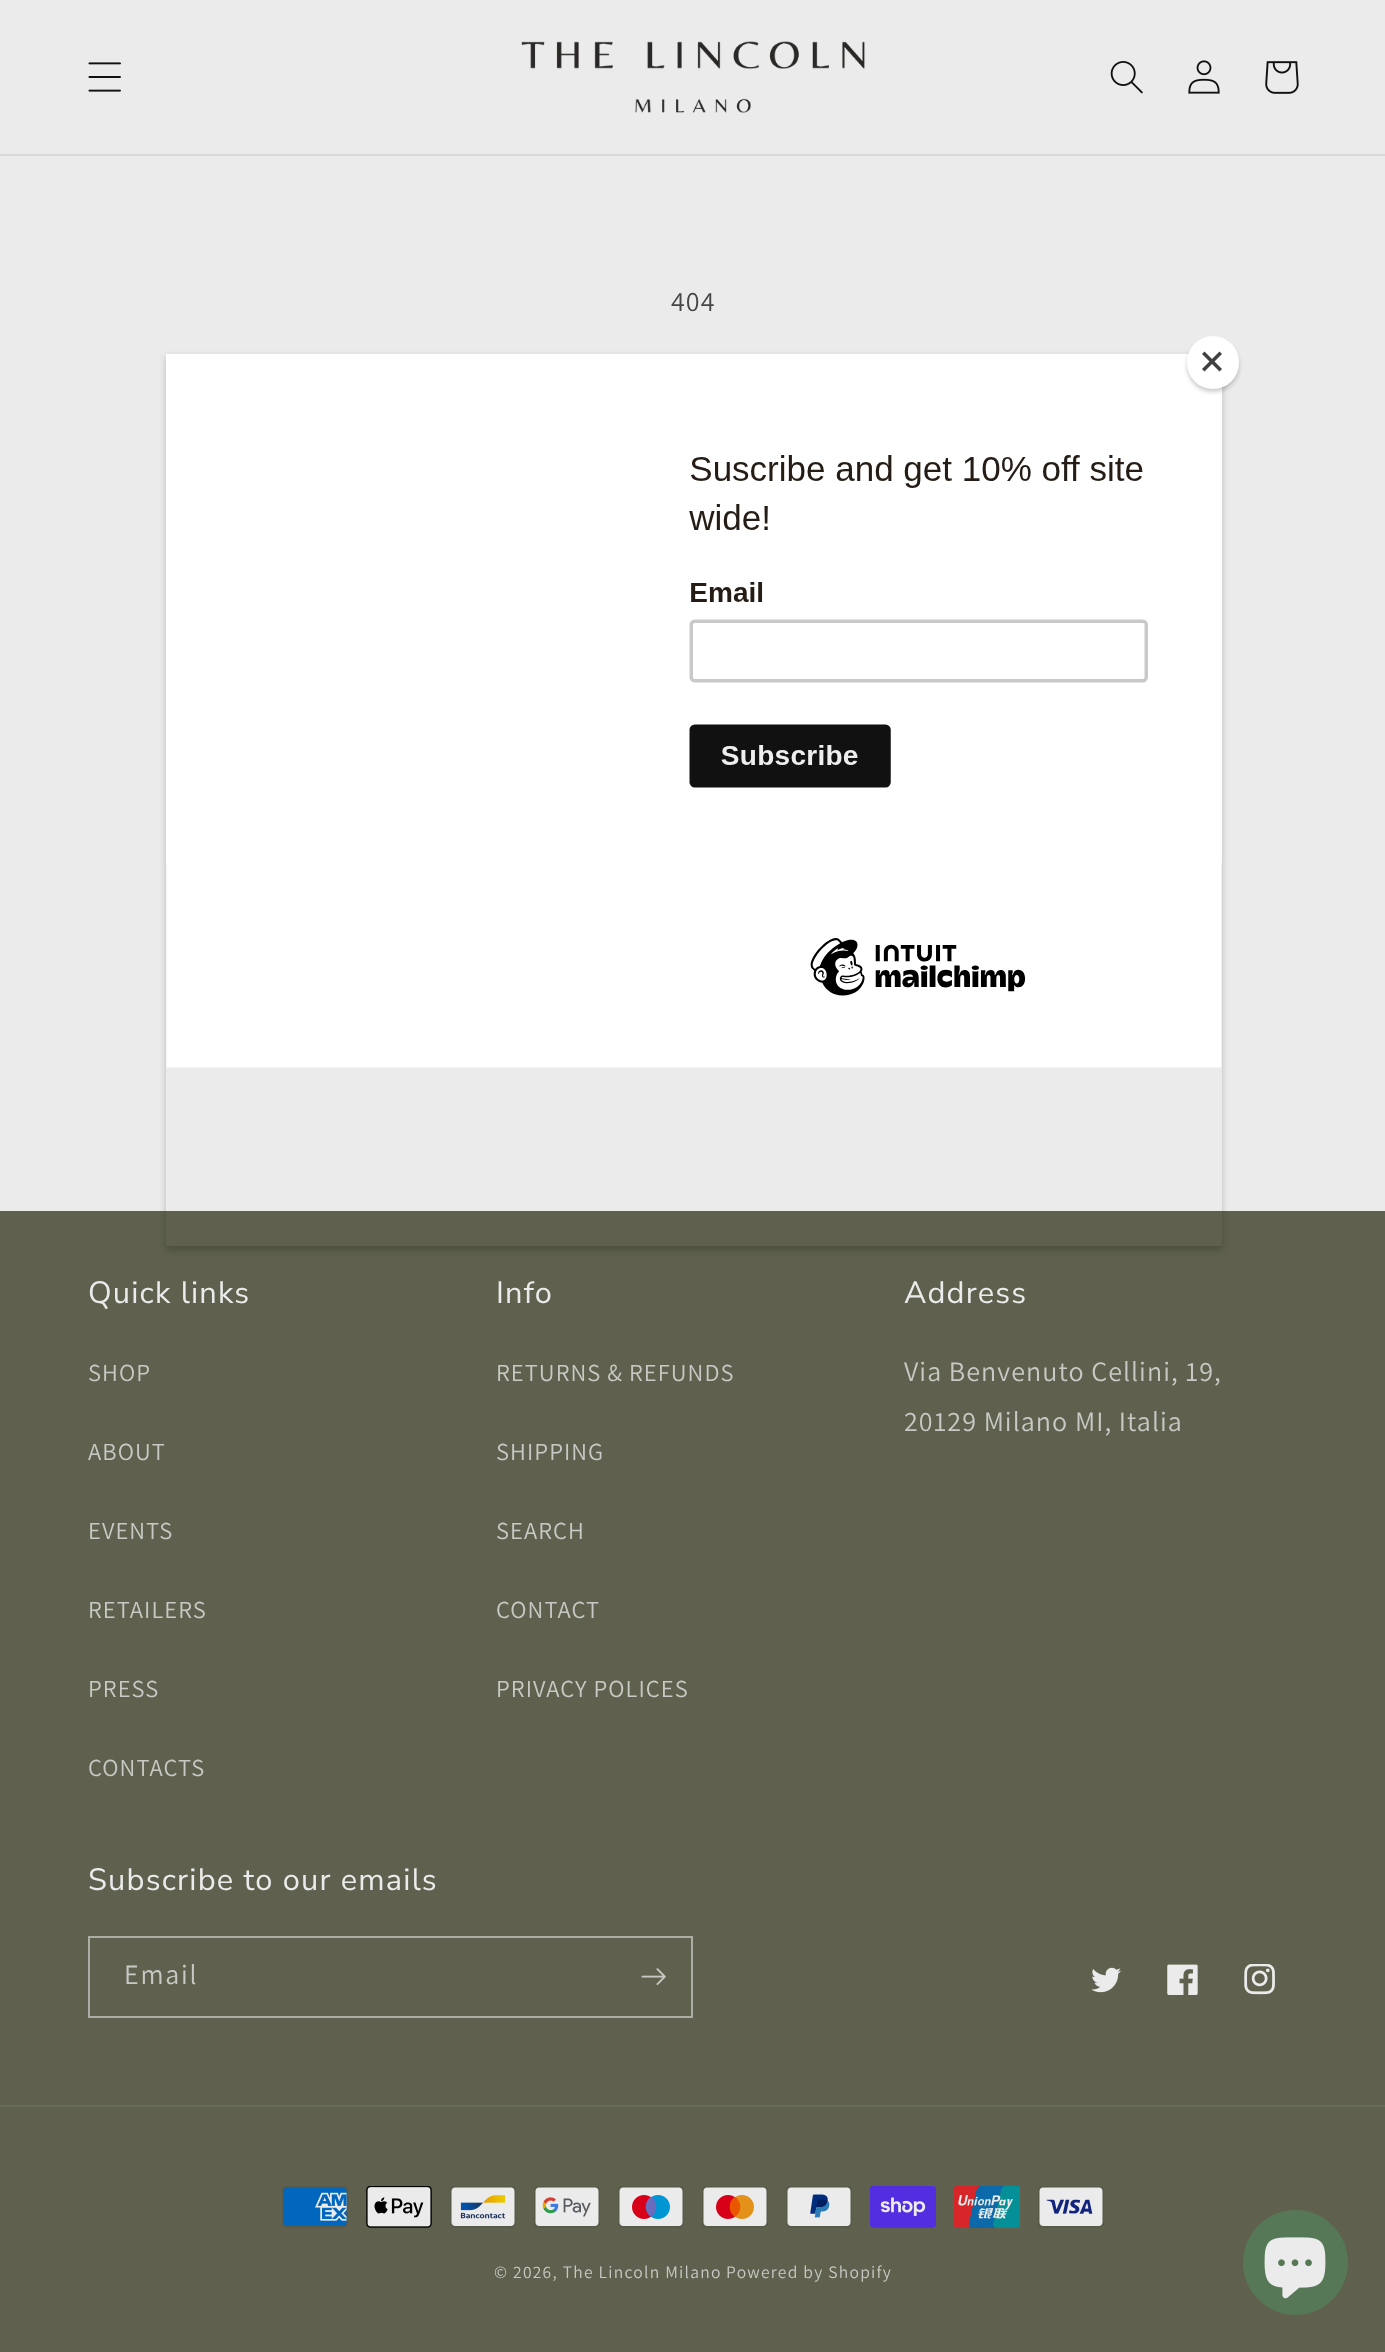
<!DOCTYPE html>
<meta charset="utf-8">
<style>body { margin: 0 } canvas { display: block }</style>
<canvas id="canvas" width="1385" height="2352"></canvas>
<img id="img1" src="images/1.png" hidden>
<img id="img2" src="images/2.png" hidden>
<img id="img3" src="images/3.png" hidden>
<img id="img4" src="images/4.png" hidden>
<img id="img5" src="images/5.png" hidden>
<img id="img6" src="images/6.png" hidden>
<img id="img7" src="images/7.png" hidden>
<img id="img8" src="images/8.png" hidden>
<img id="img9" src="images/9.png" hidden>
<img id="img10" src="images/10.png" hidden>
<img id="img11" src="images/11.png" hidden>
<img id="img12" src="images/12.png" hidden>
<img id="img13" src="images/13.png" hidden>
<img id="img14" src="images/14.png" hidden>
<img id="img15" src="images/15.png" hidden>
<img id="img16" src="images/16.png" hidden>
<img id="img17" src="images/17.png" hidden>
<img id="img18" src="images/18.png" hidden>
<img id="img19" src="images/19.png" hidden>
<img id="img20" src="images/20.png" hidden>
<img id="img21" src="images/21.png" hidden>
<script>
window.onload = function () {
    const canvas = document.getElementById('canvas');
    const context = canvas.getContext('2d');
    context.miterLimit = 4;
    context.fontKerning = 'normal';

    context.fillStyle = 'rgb(235, 235, 235)';
    context.fillRect(0, 0, 1385, 2352);
    context.fillStyle = 'rgb(217, 217, 217)';
    context.fillRect(0, 154, 1385, 2);
    context.drawImage(document.getElementById('img1'), 88, 62, 33, 30);
    context.drawImage(document.getElementById('img2'), 521, 41, 344, 72);
    context.drawImage(document.getElementById('img3'), 1110, 61, 33, 33);
    context.drawImage(document.getElementById('img4'), 1188, 60, 32, 34);
    context.drawImage(document.getElementById('img5'), 1265, 61, 34, 33);
    context.fillStyle = 'rgb(95, 97, 78)';
    context.fillRect(0, 1211, 1385, 1141);
    context.save();
    context.beginPath();
    context.moveTo(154, 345);
    context.lineTo(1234, 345);
    context.lineTo(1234, 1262);
    context.lineTo(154, 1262);
    context.closePath();
    context.moveTo(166, 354);
    context.lineTo(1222, 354);
    context.lineTo(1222, 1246);
    context.lineTo(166, 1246);
    context.closePath();
    context.clip('evenodd');
    context.fillStyle = 'rgba(0, 0, 0, 0.2)';
    context.filter = 'blur(3.5px)';
    context.beginPath();
    context.rect(166, 357, 1056, 893);
    context.fill();
    context.filter = 'none';
    context.restore();
    context.drawImage(document.getElementById('img6'), 166, 354, 1056, 714);
    context.fillStyle = 'rgba(0, 0, 0, 0.2)';
    context.filter = 'blur(2px)';
    context.beginPath();
    context.roundRect(1187, 340, 52, 52, 26);
    context.fill();
    context.filter = 'none';
    context.fillStyle = 'rgb(255, 255, 255)';
    context.beginPath();
    context.roundRect(1187, 336, 52, 53, 26);
    context.fill();
    context.fillStyle = 'rgb(65, 65, 65)';
    context.beginPath();
    context.moveTo(1219.5, 351.5);
    context.lineTo(1222, 354);
    context.lineTo(1204.5, 371.5);
    context.lineTo(1202, 369);
    context.closePath();
    context.fill();
    context.beginPath();
    context.moveTo(1202, 354);
    context.lineTo(1204.5, 351.5);
    context.lineTo(1222, 369);
    context.lineTo(1219.5, 371.5);
    context.closePath();
    context.fill();
    context.strokeStyle = 'rgb(172, 173, 165)';
    context.lineWidth = 2;
    context.strokeRect(89, 1937, 603, 80);
    context.drawImage(document.getElementById('img7'), 641, 1968, 25, 17);
    context.drawImage(document.getElementById('img8'), 1091, 1967, 30, 26);
    context.drawImage(document.getElementById('img9'), 1167, 1964, 31, 31);
    context.drawImage(document.getElementById('img10'), 1244, 1964, 31, 31);
    context.fillStyle = 'rgb(106, 108, 91)';
    context.fillRect(0, 2105, 1385, 2);
    context.drawImage(document.getElementById('img11'), 282, 2186, 66, 42);
    context.drawImage(document.getElementById('img12'), 366, 2186, 66, 42);
    context.drawImage(document.getElementById('img13'), 450, 2186, 66, 42);
    context.drawImage(document.getElementById('img14'), 534, 2186, 66, 42);
    context.drawImage(document.getElementById('img15'), 618, 2186, 66, 42);
    context.drawImage(document.getElementById('img16'), 702, 2186, 66, 42);
    context.drawImage(document.getElementById('img17'), 786, 2186, 66, 42);
    context.drawImage(document.getElementById('img18'), 870, 2186, 66, 42);
    context.drawImage(document.getElementById('img19'), 954, 2186, 66, 42);
    context.drawImage(document.getElementById('img20'), 1038, 2186, 66, 42);
    context.fillStyle = 'rgb(86, 120, 86)';
    context.beginPath();
    context.arc(1295.5, 2262.5, 52.5, 0, 2 * Math.PI);
    context.fill();
    context.drawImage(document.getElementById('img21'), 1264, 2237, 62, 62);
    context.letterSpacing = '1.05px';
    context.font = '28px Assistant';
    context.fillStyle = 'rgb(71, 71, 71)';
    context.fillText('404', 671, 311);
    context.letterSpacing = '1.2px';
    context.font = '30.75px Nunito Sans';
    context.fillStyle = 'rgb(235, 235, 235)';
    context.fillText('Quick links', 88, 1303);
    context.letterSpacing = '1.05px';
    context.font = '24.5px Assistant';
    context.fillStyle = 'rgb(200, 201, 196)';
    context.fillText('SHOP', 88, 1381);
    context.fillText('ABOUT', 88, 1460);
    context.fillText('EVENTS', 88, 1539);
    context.fillText('RETAILERS', 88, 1618);
    context.fillText('PRESS', 88, 1697);
    context.fillText('CONTACTS', 88, 1776);
    context.letterSpacing = '1.2px';
    context.font = '30.75px Nunito Sans';
    context.fillStyle = 'rgb(235, 235, 235)';
    context.fillText('Info', 496, 1303);
    context.letterSpacing = '1.05px';
    context.font = '24.5px Assistant';
    context.fillStyle = 'rgb(200, 201, 196)';
    context.fillText('RETURNS & REFUNDS', 496, 1381);
    context.fillText('SHIPPING', 496, 1460);
    context.fillText('SEARCH', 496, 1539);
    context.fillText('CONTACT', 496, 1618);
    context.fillText('PRIVACY POLICES', 496, 1697);
    context.letterSpacing = '1.2px';
    context.font = '30.75px Nunito Sans';
    context.fillStyle = 'rgb(235, 235, 235)';
    context.fillText('Address', 904, 1303);
    context.letterSpacing = '1.05px';
    context.font = '28px Assistant';
    context.fillStyle = 'rgb(200, 201, 196)';
    context.fillText('Via Benvenuto Cellini, 19,', 904, 1381);
    context.fillText('20129 Milano MI, Italia', 904, 1431);
    context.letterSpacing = '1.2px';
    context.font = '30.75px Nunito Sans';
    context.fillStyle = 'rgb(235, 235, 235)';
    context.fillText('Subscribe to our emails', 88, 1890);
    context.letterSpacing = '1.75px';
    context.font = '28px Assistant';
    context.fillStyle = 'rgb(200, 201, 196)';
    context.fillText('Email', 124, 1984);
    context.letterSpacing = '1.25px';
    context.font = '17.5px Assistant';
    context.fillText('© 2026, The Lincoln Milano', 494, 2278);
    context.fillText('Powered by Shopify', 726, 2278);
};
</script>
